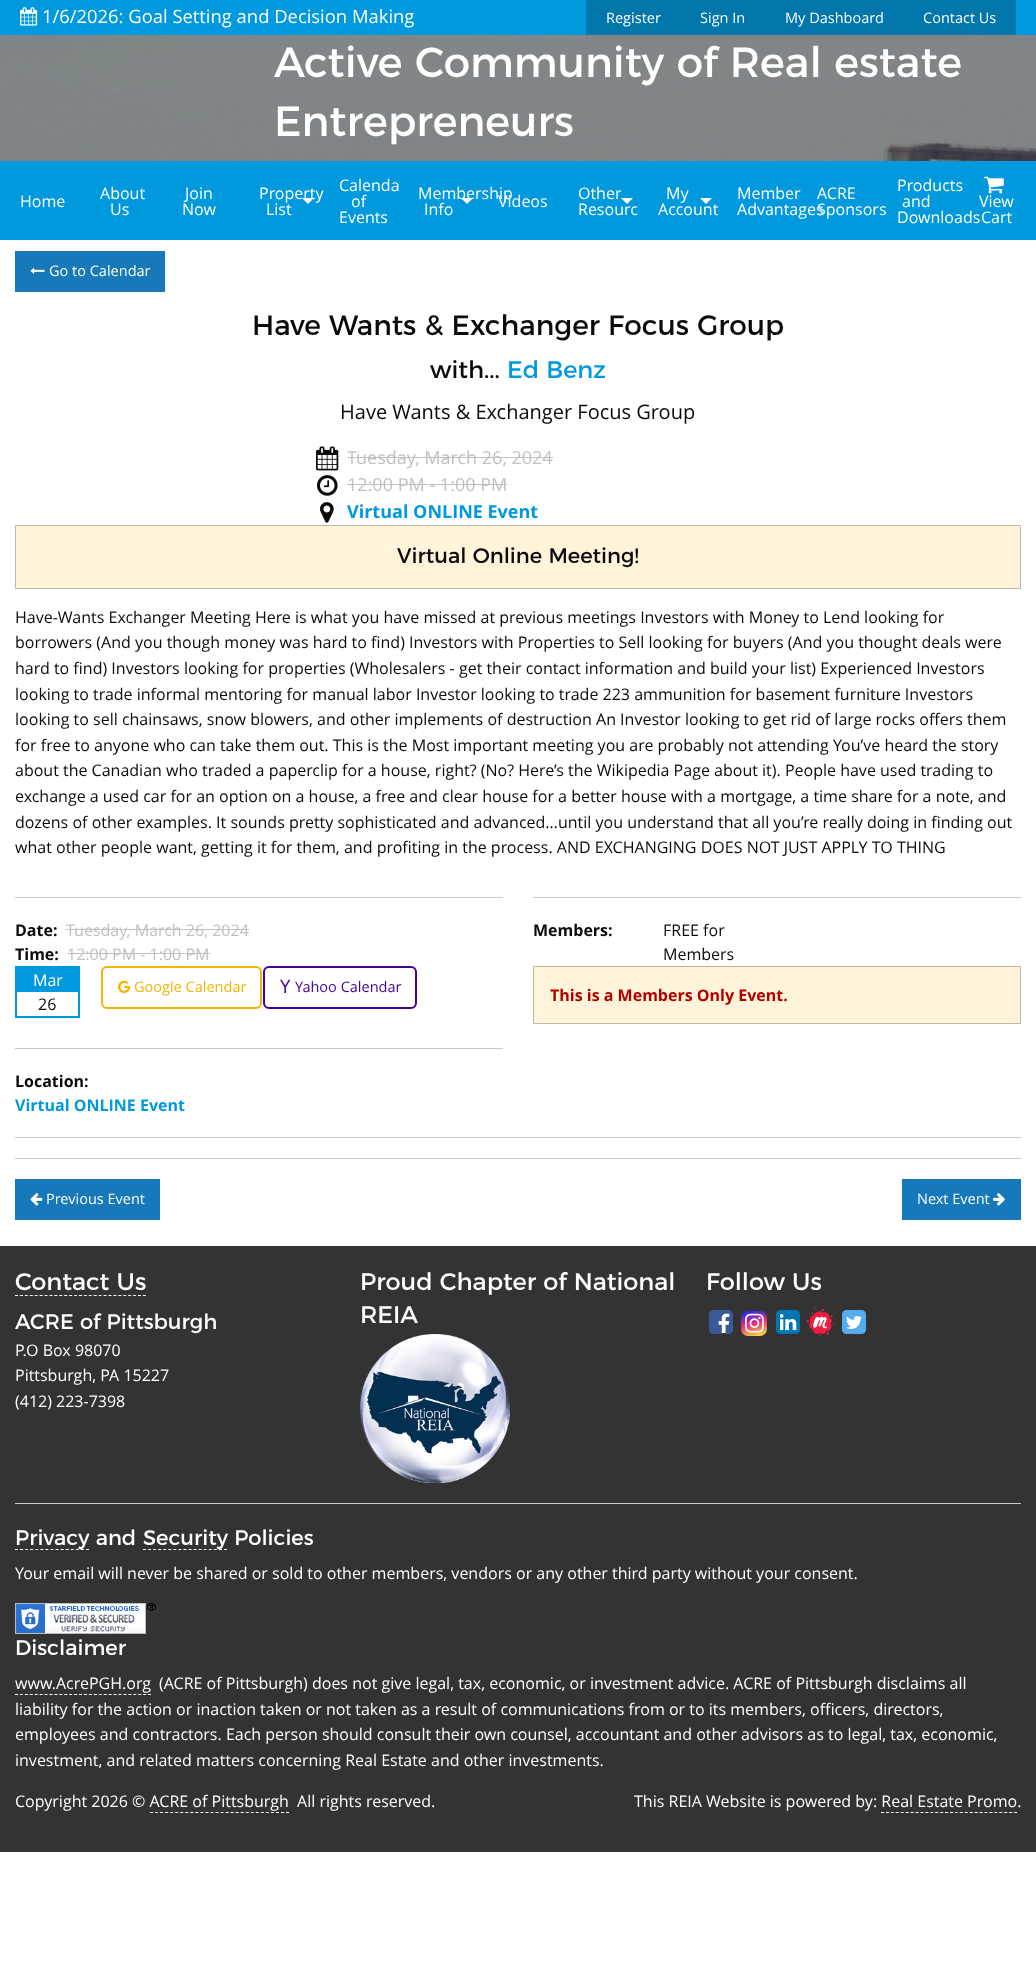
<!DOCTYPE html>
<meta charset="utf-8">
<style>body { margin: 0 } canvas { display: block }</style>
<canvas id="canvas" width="1036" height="1981"></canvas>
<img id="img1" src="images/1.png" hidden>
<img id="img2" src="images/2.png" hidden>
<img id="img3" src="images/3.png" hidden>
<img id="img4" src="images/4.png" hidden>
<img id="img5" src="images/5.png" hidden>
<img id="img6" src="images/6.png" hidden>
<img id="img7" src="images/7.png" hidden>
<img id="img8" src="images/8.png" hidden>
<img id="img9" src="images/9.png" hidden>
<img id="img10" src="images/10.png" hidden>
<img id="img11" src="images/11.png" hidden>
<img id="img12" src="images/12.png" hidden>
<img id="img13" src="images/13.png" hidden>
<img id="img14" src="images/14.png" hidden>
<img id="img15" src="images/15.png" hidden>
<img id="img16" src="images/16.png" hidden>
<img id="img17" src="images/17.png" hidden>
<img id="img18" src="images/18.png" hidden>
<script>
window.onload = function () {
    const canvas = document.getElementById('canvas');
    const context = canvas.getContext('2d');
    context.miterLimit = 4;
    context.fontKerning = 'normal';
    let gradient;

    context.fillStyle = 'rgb(255, 255, 255)';
    context.fillRect(0, 0, 1036, 1981);
    context.fillStyle = 'rgb(0, 153, 221)';
    context.fillRect(0, 0, 1036, 35);
    context.drawImage(document.getElementById('img1'), 20, 7, 18, 19);
    context.fillStyle = 'rgb(0, 118, 170)';
    context.fillRect(586, 0, 430, 35);
    context.drawImage(document.getElementById('img2'), 0, 35, 1036, 126);
    context.fillStyle = 'rgb(0, 153, 221)';
    context.fillRect(0, 161, 1036, 79);
    context.fillStyle = 'rgb(255, 255, 255)';
    context.beginPath();
    context.moveTo(302, 198);
    context.lineTo(314, 198);
    context.lineTo(308, 204);
    context.closePath();
    context.fill();
    context.beginPath();
    context.moveTo(461, 198);
    context.lineTo(473, 198);
    context.lineTo(467, 204);
    context.closePath();
    context.fill();
    context.beginPath();
    context.moveTo(621, 198);
    context.lineTo(633, 198);
    context.lineTo(627, 204);
    context.closePath();
    context.fill();
    context.beginPath();
    context.moveTo(700, 198);
    context.lineTo(712, 198);
    context.lineTo(706, 204);
    context.closePath();
    context.fill();
    context.drawImage(document.getElementById('img3'), 984, 176, 20, 18);
    context.fillStyle = 'rgb(23, 121, 186)';
    context.fillRect(15, 251, 150, 41);
    context.drawImage(document.getElementById('img4'), 30, 267, 15, 7);
    context.drawImage(document.getElementById('img5'), 316, 446, 23, 25);
    context.fillStyle = 'rgb(192, 192, 192)';
    context.fillRect(347, 457, 206, 1);
    context.drawImage(document.getElementById('img6'), 317, 475, 21, 21);
    context.fillRect(347, 484, 160, 1);
    context.drawImage(document.getElementById('img7'), 320, 502, 14, 21);
    context.fillStyle = 'rgb(255, 243, 217)';
    context.beginPath();
    context.rect(15.5, 525.5, 1005, 63);
    context.fill();
    context.strokeStyle = 'rgb(194, 185, 165)';
    context.stroke();
    context.fillStyle = 'rgb(202, 202, 202)';
    context.fillRect(15, 897, 488, 1);
    context.fillStyle = 'rgb(192, 192, 192)';
    context.fillRect(66, 929, 183, 1);
    context.fillRect(67, 953, 143, 1);
    context.strokeStyle = 'rgb(0, 153, 221)';
    context.lineWidth = 2;
    context.strokeRect(16, 967, 63, 50);
    context.fillStyle = 'rgb(0, 153, 221)';
    context.fillRect(17, 968, 61, 24);
    context.beginPath();
    context.roundRect(102, 967, 159, 41, 5);
    context.strokeStyle = 'rgb(244, 180, 0)';
    context.stroke();
    context.drawImage(document.getElementById('img8'), 118, 980, 13, 13);
    context.beginPath();
    context.roundRect(264, 967, 152, 41, 5);
    context.strokeStyle = 'rgb(67, 2, 151)';
    context.stroke();
    context.drawImage(document.getElementById('img9'), 280, 979, 11, 14);
    context.fillStyle = 'rgb(202, 202, 202)';
    context.fillRect(15, 1048, 488, 1);
    context.fillRect(533, 897, 488, 1);
    context.fillStyle = 'rgb(255, 243, 217)';
    context.beginPath();
    context.rect(533.5, 966.5, 487, 57);
    context.fill();
    context.strokeStyle = 'rgb(194, 185, 165)';
    context.lineWidth = 1;
    context.stroke();
    context.fillStyle = 'rgb(202, 202, 202)';
    context.fillRect(15, 1137, 1006, 1);
    context.fillRect(15, 1158, 1006, 1);
    context.fillStyle = 'rgb(23, 121, 186)';
    context.fillRect(15, 1179, 145, 41);
    context.drawImage(document.getElementById('img10'), 30, 1193, 13, 13);
    context.fillRect(902, 1179, 119, 41);
    context.drawImage(document.getElementById('img11'), 993, 1193, 12, 13);
    context.fillStyle = 'rgb(51, 51, 51)';
    context.fillRect(0, 1246, 1036, 606);
    context.beginPath();
    context.moveTo(15, 1295.5);
    context.lineTo(146, 1295.5);
    context.strokeStyle = 'rgb(255, 255, 255)';
    context.setLineDash([3, 1.92]);
    context.stroke();
    context.drawImage(document.getElementById('img12'), 360, 1334, 150, 149);
    context.fillStyle = 'rgb(255, 255, 255)';
    context.fillRect(718, 1313, 12, 20);
    context.drawImage(document.getElementById('img13'), 709, 1310, 24, 24);
    gradient = context.createLinearGradient(758, 1338, 750, 1309);
    gradient.addColorStop(0, 'rgb(249, 237, 50)');
    gradient.addColorStop(0.5, 'rgb(238, 42, 123)');
    gradient.addColorStop(1, 'rgb(0, 42, 255)');
    context.fillStyle = gradient;
    context.beginPath();
    context.roundRect(741, 1311, 26, 25, 7);
    context.fill();
    context.drawImage(document.getElementById('img14'), 745, 1313, 19, 20);
    context.fillStyle = 'rgb(255, 255, 255)';
    context.fillRect(780, 1314, 17, 17);
    context.drawImage(document.getElementById('img15'), 776, 1310, 24, 24);
    context.beginPath();
    context.roundRect(812, 1313, 17, 20, 8.5);
    context.fill();
    context.drawImage(document.getElementById('img16'), 806, 1308, 30, 28);
    context.fillRect(846, 1316, 16, 13);
    context.drawImage(document.getElementById('img17'), 842, 1310, 24, 24);
    context.fillStyle = 'rgb(202, 202, 202)';
    context.fillRect(15, 1503, 1006, 1);
    context.beginPath();
    context.moveTo(15, 1549.5);
    context.lineTo(89, 1549.5);
    context.setLineDash([3, 2.07]);
    context.stroke();
    context.beginPath();
    context.moveTo(143, 1549.5);
    context.lineTo(227, 1549.5);
    context.setLineDash([3, 2.06]);
    context.stroke();
    context.drawImage(document.getElementById('img18'), 15, 1603, 141, 31);
    context.beginPath();
    context.moveTo(15, 1694.5);
    context.lineTo(151, 1694.5);
    context.setLineDash([3, 1.93]);
    context.stroke();
    context.beginPath();
    context.moveTo(150, 1812.5);
    context.lineTo(289, 1812.5);
    context.setLineDash([3, 2.04]);
    context.stroke();
    context.beginPath();
    context.moveTo(881, 1812.5);
    context.lineTo(1017, 1812.5);
    context.setLineDash([3, 1.93]);
    context.stroke();
    context.font = '18.4px Open Sans';
    context.fillStyle = 'rgb(255, 255, 255)';
    context.fillText('1/6/2026: Goal Setting and Decision Making', 42, 23);
    context.font = '14.5px Open Sans';
    context.fillText('Register', 606, 23);
    context.fillText('Sign In', 700, 23);
    context.fillText('My Dashboard', 785, 23);
    context.fillText('Contact Us', 923, 23);
    context.font = '42px Montserrat';
    context.fillText('Active Community of Real estate', 274, 77);
    context.fillText('Entrepreneurs', 274, 136);
    context.font = '16px Open Sans';
    context.fillText('Home', 20, 207);
    context.fillText('About', 100, 199);
    context.fillText('Us', 110, 215);
    context.fillText('Join', 185, 199);
    context.fillText('Now', 182, 215);
    context.fillText('Property', 259, 199);
    context.fillText('List', 266, 215);
    context.fillText('Calenda', 339, 191);
    context.fillText('of', 351, 207);
    context.fillText('Events', 339, 223);
    context.fillText('Info', 424, 215);
    context.fillText('Videos', 498, 207);
    context.fillText('Membership', 418, 199);
    context.fillText('Other', 578, 199);
    context.fillText('Resourc', 578, 215);
    context.fillText('My', 666, 199);
    context.fillText('Account', 658, 215);
    context.fillText('Member', 737, 199);
    context.fillText('Advantages', 737, 215);
    context.fillText('ACRE', 817, 199);
    context.fillText('Sponsors', 817, 215);
    context.fillText('Products', 897, 191);
    context.fillText('and', 902, 207);
    context.fillText('Downloads', 897, 223);
    context.fillText('View', 979, 207);
    context.fillText('Cart', 981, 223);
    context.font = '14.5px Open Sans';
    context.fillText('Go to Calendar', 49, 276);
    context.font = '28px Montserrat';
    context.fillStyle = 'rgb(10, 10, 10)';
    context.fillText('Have Wants & Exchanger Focus Group', 252, 335);
    context.font = '24px Montserrat';
    context.fillText('with...', 430, 378);
    context.fillStyle = 'rgb(0, 153, 221)';
    context.fillText('Ed Benz', 507, 378);
    context.font = '20px Open Sans';
    context.fillStyle = 'rgb(10, 10, 10)';
    context.fillText('Have Wants & Exchanger Focus Group', 340, 419);
    context.font = '18px Open Sans';
    context.fillStyle = 'rgb(192, 192, 192)';
    context.fillText('Tuesday, March 26, 2024', 347, 464);
    context.fillText('12:00 PM - 1:00 PM', 347, 491);
    context.font = 'bold 18px Open Sans';
    context.fillStyle = 'rgb(0, 153, 221)';
    context.fillText('Virtual ONLINE Event', 347, 518);
    context.font = '21px Montserrat';
    context.fillStyle = 'rgb(10, 10, 10)';
    context.fillText('Virtual Online Meeting!', 397, 563);
    context.font = '16px Open Sans';
    context.fillText('Have-Wants Exchanger Meeting Here is what you have missed at previous meetings Investors with Money to Lend looking for', 15, 623);
    context.fillText('borrowers (And you though money was hard to find) Investors with Properties to Sell looking for buyers (And you thought deals were', 15, 648);
    context.fillText('hard to find) Investors looking for properties (Wholesalers - get their contact information and build your list) Experienced Investors', 15, 674);
    context.fillText('looking to trade informal mentoring for manual labor Investor looking to trade 223 ammunition for basement furniture Investors', 15, 700);
    context.fillText('looking to sell chainsaws, snow blowers, and other implements of destruction An Investor looking to get rid of large rocks offers them', 15, 725);
    context.fillText('for free to anyone who can take them out. This is the Most important meeting you are probably not attending You’ve heard the story', 15, 751);
    context.fillText('about the Canadian who traded a paperclip for a house, right? (No? Here’s the Wikipedia Page about it). People have used trading to', 15, 776);
    context.fillText('exchange a used car for an option on a house, a free and clear house for a better house with a mortgage, a time share for a note, and', 15, 802);
    context.fillText('dozens of other examples. It sounds pretty sophisticated and advanced…until you understand that all you’re really doing in finding out', 15, 828);
    context.fillText('what other people want, getting it for them, and profiting in the process. AND EXCHANGING DOES NOT JUST APPLY TO THING', 15, 853);
    context.font = 'bold 16px Open Sans';
    context.fillText('Date:', 15, 936);
    context.font = '16px Open Sans';
    context.fillStyle = 'rgb(192, 192, 192)';
    context.fillText('Tuesday, March 26, 2024', 66, 936);
    context.font = 'bold 16px Open Sans';
    context.fillStyle = 'rgb(10, 10, 10)';
    context.fillText('Time:', 15, 960);
    context.font = '16px Open Sans';
    context.fillStyle = 'rgb(192, 192, 192)';
    context.fillText('12:00 PM - 1:00 PM', 67, 960);
    context.fillStyle = 'rgb(255, 255, 255)';
    context.fillText('Mar', 33, 986);
    context.fillStyle = 'rgb(10, 10, 10)';
    context.fillText('26', 38, 1010);
    context.font = '14.5px Open Sans';
    context.fillStyle = 'rgb(244, 180, 0)';
    context.fillText('Google Calendar', 134, 992);
    context.fillStyle = 'rgb(67, 2, 151)';
    context.fillText('Yahoo Calendar', 295, 992);
    context.font = 'bold 16px Open Sans';
    context.fillStyle = 'rgb(10, 10, 10)';
    context.fillText('Location:', 15, 1087);
    context.fillStyle = 'rgb(0, 153, 221)';
    context.fillText('Virtual ONLINE Event', 15, 1111);
    context.fillStyle = 'rgb(10, 10, 10)';
    context.fillText('Members:', 533, 936);
    context.font = '16px Open Sans';
    context.fillText('FREE for', 663, 936);
    context.fillText('Members', 663, 960);
    context.font = 'bold 16px Open Sans';
    context.fillStyle = 'rgb(178, 0, 0)';
    context.fillText('This is a Members Only Event.', 550, 1001);
    context.font = '14.5px Open Sans';
    context.fillStyle = 'rgb(255, 255, 255)';
    context.fillText('Previous Event', 46, 1204);
    context.fillText('Next Event', 917, 1204);
    context.font = '24px Montserrat';
    context.fillText('Contact Us', 15, 1290);
    context.font = '21px Montserrat';
    context.fillText('ACRE of Pittsburgh', 15, 1329);
    context.font = '16px Open Sans';
    context.fillText('P.O Box 98070', 15, 1356);
    context.fillText('Pittsburgh, PA 15227', 15, 1381);
    context.fillText('(412) 223-7398', 15, 1407);
    context.font = '24px Montserrat';
    context.fillText('Proud Chapter of National', 360, 1290);
    context.fillText('REIA', 360, 1323);
    context.fillText('Follow Us', 706, 1290);
    context.font = '21px Montserrat';
    context.fillText('Privacy and', 15, 1545);
    context.fillText('Security Policies', 143, 1545);
    context.font = '16px Open Sans';
    context.fillText('Your email will never be shared or sold to other members, vendors or any other third party without your consent.', 15, 1579);
    context.font = '21px Montserrat';
    context.fillText('Disclaimer', 15, 1655);
    context.font = '16px Open Sans';
    context.fillText('www.AcrePGH.org', 15, 1689);
    context.fillText('(ACRE of Pittsburgh) does not give legal, tax, economic, or investment advice. ACRE of Pittsburgh disclaims all', 159, 1689);
    context.fillText('liability for the action or inaction taken or not taken as a result of communications from or to its members, officers, directors,', 15, 1715);
    context.fillText('employees and contractors. Each person should consult their own counsel, accountant and other advisors as to legal, tax, economic,', 15, 1740);
    context.fillText('investment, and related matters concerning Real Estate and other investments.', 15, 1766);
    context.fillText('Copyright 2026 © ACRE of Pittsburgh', 15, 1807);
    context.fillText('All rights reserved.', 297, 1807);
    context.fillText('This REIA Website is powered by: Real Estate Promo.', 634, 1807);
};
</script>
